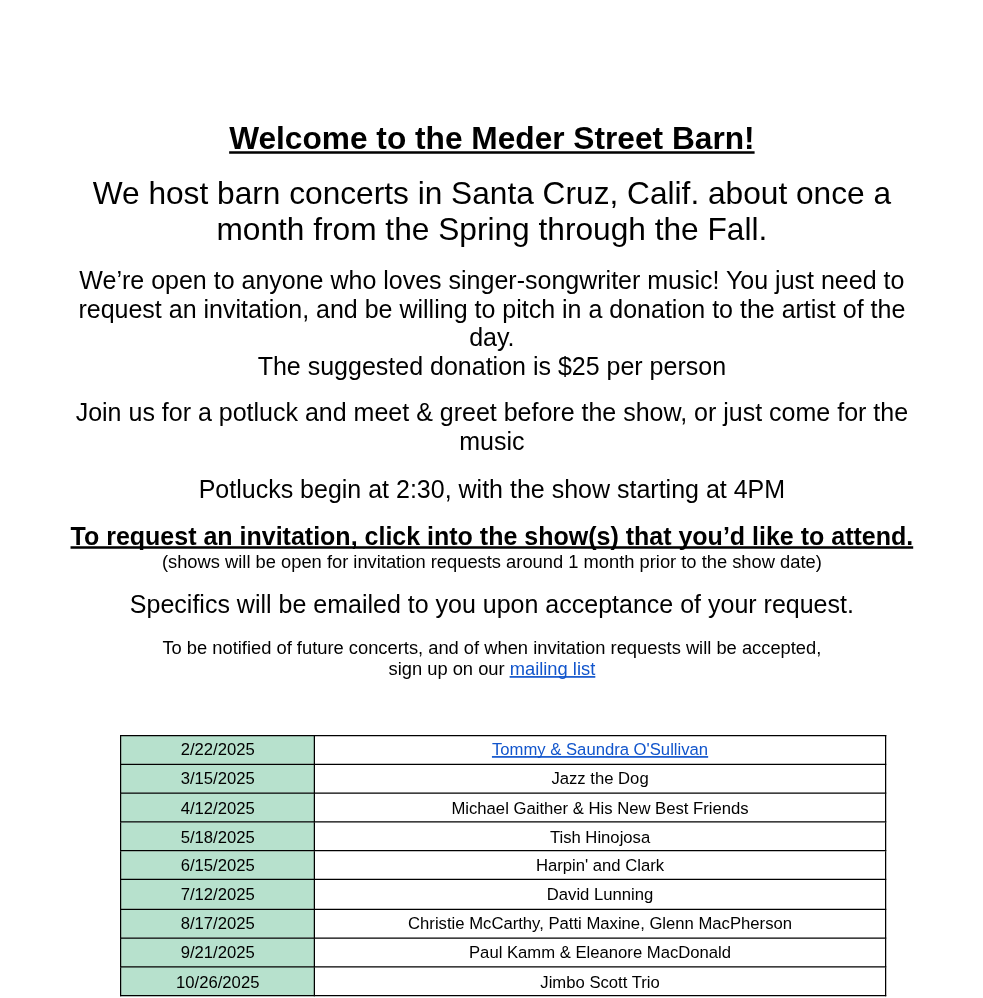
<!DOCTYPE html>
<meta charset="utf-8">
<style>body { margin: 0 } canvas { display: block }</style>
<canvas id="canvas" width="983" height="998"></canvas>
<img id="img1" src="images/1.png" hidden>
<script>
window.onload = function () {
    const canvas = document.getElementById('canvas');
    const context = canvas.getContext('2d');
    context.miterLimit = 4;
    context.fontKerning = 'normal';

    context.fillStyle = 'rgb(255, 255, 255)';
    context.fillRect(0, 0, 983, 998);
    context.drawImage(document.getElementById('img1'), 70, 126, 844, 871);
};
</script>
